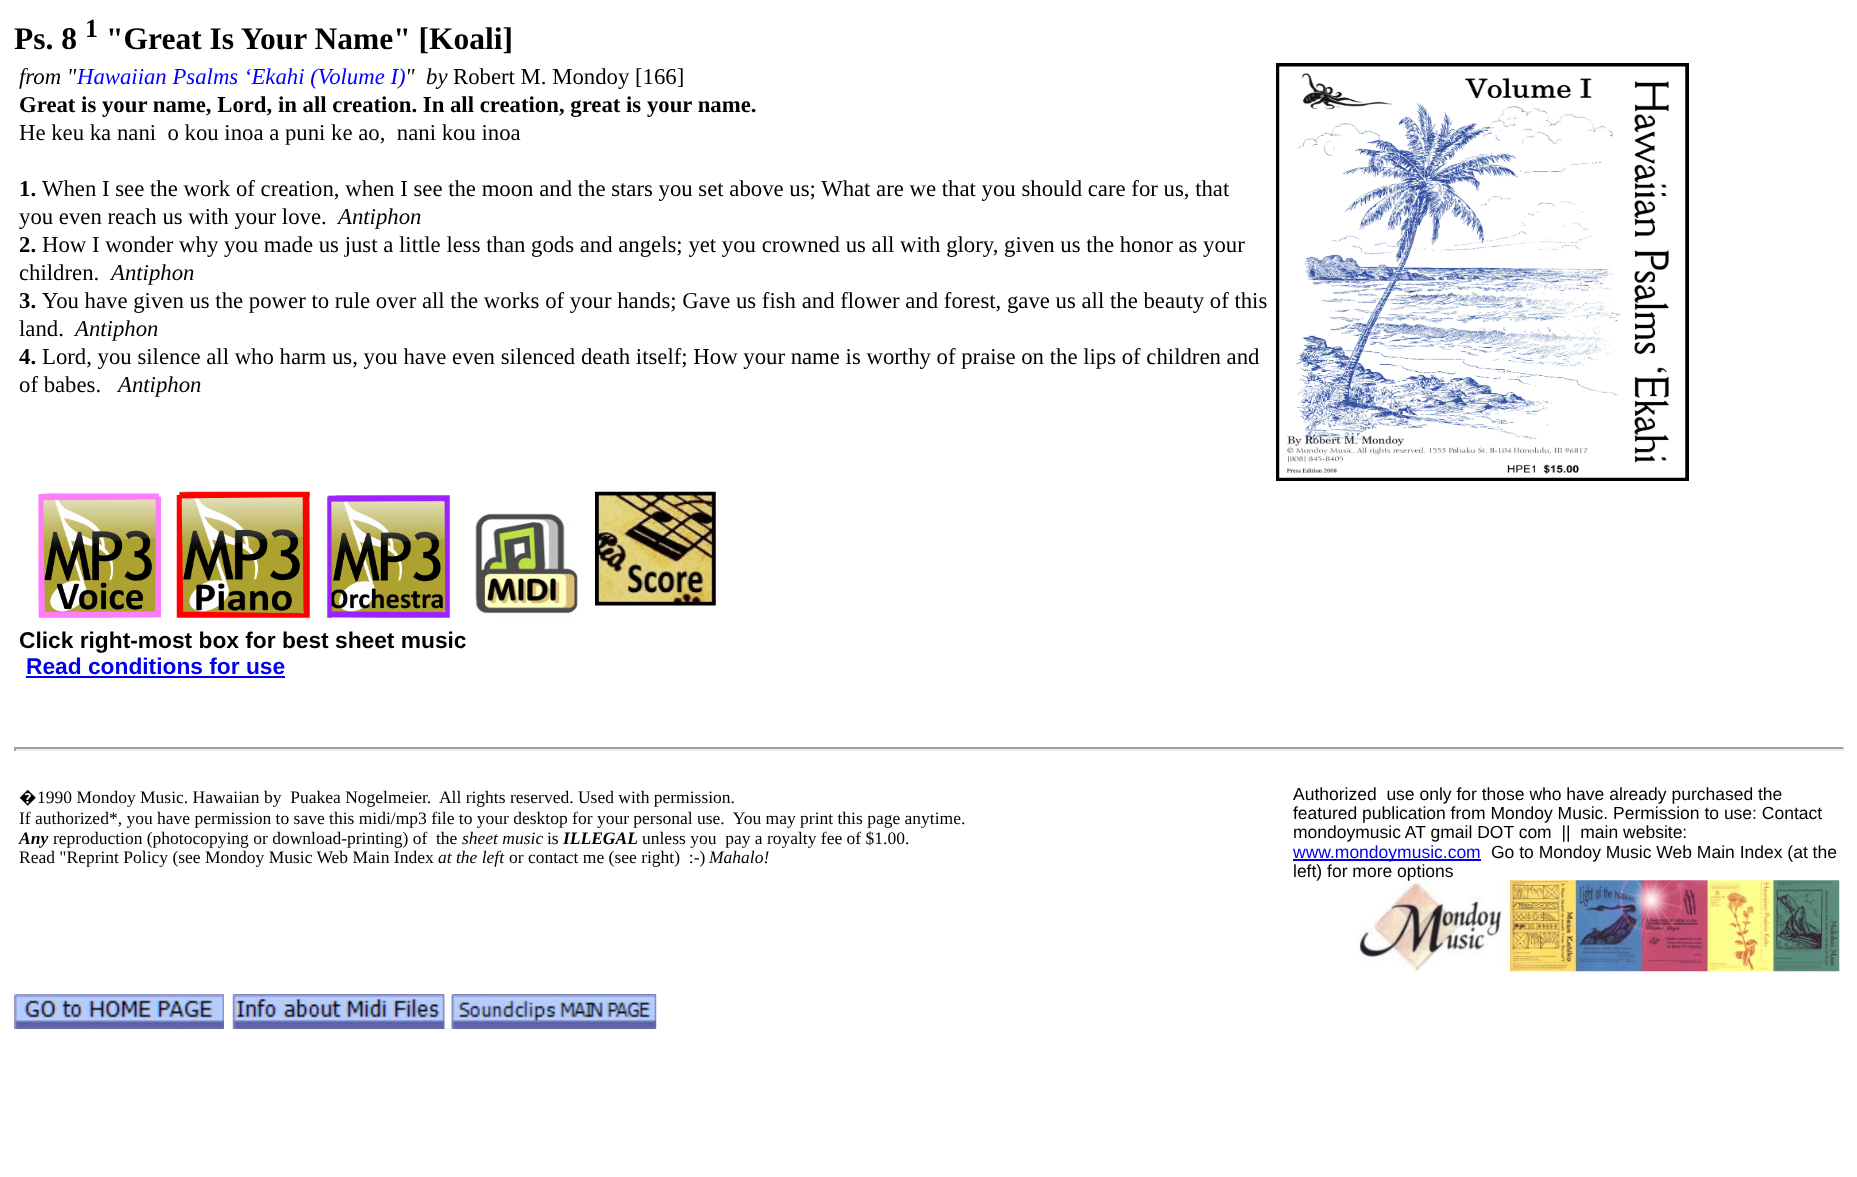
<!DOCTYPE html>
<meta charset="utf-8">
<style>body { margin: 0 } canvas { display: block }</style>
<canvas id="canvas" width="1857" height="1177"></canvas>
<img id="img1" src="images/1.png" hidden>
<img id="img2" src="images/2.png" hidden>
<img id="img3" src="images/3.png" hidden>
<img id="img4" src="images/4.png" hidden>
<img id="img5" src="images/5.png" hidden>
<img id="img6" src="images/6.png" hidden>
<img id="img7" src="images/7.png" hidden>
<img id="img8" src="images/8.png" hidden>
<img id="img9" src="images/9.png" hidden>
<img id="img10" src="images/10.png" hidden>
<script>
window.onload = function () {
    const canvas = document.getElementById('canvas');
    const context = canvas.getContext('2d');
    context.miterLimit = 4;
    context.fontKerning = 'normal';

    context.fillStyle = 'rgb(255, 255, 255)';
    context.fillRect(0, 0, 1857, 1177);
    context.strokeStyle = 'rgb(0, 0, 0)';
    context.lineWidth = 4;
    context.strokeRect(1278, 65, 409, 414);
    context.drawImage(document.getElementById('img1'), 1279, 66, 407, 412);
    context.drawImage(document.getElementById('img2'), 38, 493, 123, 125);
    context.drawImage(document.getElementById('img3'), 176, 491, 134, 127);
    context.drawImage(document.getElementById('img4'), 327, 495, 123, 123);
    context.drawImage(document.getElementById('img5'), 475, 513, 104, 104);
    context.drawImage(document.getElementById('img6'), 595, 491, 121, 115);
    context.fillStyle = 'rgb(0, 0, 238)';
    context.fillRect(26, 676, 259, 2);
    context.fillStyle = 'rgb(159, 159, 159)';
    context.fillRect(14, 747, 1831, 2);
    context.fillStyle = 'rgb(238, 238, 238)';
    context.fillRect(1843, 747, 2, 4);
    context.fillRect(14, 749, 1831, 2);
    context.fillStyle = 'rgb(159, 159, 159)';
    context.fillRect(14, 747, 2, 4);
    context.fillStyle = 'rgb(0, 0, 238)';
    context.fillRect(1293, 859, 188, 2);
    context.drawImage(document.getElementById('img7'), 1357, 880, 483, 92);
    context.drawImage(document.getElementById('img8'), 14, 994, 210, 35);
    context.drawImage(document.getElementById('img9'), 232, 994, 213, 35);
    context.drawImage(document.getElementById('img10'), 451, 994, 206, 35);
    context.font = 'bold 31.5px Liberation Serif';
    context.fillStyle = 'rgb(0, 0, 0)';
    context.fillText('Ps. 8', 14, 49);
    context.font = 'bold 26px Liberation Serif';
    context.fillText('1', 85, 37);
    context.font = 'bold 31.5px Liberation Serif';
    context.fillText('"Great Is Your Name" [Koali]', 106, 49);
    context.font = 'italic 22.75px Liberation Serif';
    context.fillText('from "', 19, 84);
    context.fillStyle = 'rgb(0, 0, 255)';
    context.fillText('Hawaiian Psalms ʻEkahi (Volume I)', 77, 84);
    context.fillStyle = 'rgb(0, 0, 0)';
    context.fillText('"', 405, 84);
    context.fillText('by', 426, 84);
    context.font = '22.75px Liberation Serif';
    context.fillText('Robert M. Mondoy [166]', 453, 84);
    context.font = 'bold 22.75px Liberation Serif';
    context.fillText('Great is your name, Lord, in all creation. In all creation, great is your name.', 19, 112);
    context.font = '22.75px Liberation Serif';
    context.fillText('He keu ka nani  o kou inoa a puni ke ao,  nani kou inoa', 19, 140);
    context.font = 'bold 22.75px Liberation Serif';
    context.fillText('1.', 19, 196);
    context.font = '22.75px Liberation Serif';
    context.fillText('When I see the work of creation, when I see the moon and the stars you set above us; What are we that you should care for us, that', 42, 196);
    context.fillText('you even reach us with your love.', 19, 224);
    context.font = 'italic 22.75px Liberation Serif';
    context.fillText('Antiphon', 338, 224);
    context.font = 'bold 22.75px Liberation Serif';
    context.fillText('2.', 19, 252);
    context.font = '22.75px Liberation Serif';
    context.fillText('How I wonder why you made us just a little less than gods and angels; yet you crowned us all with glory, given us the honor as your', 42, 252);
    context.fillText('children.', 19, 280);
    context.font = 'italic 22.75px Liberation Serif';
    context.fillText('Antiphon', 111, 280);
    context.font = 'bold 22.75px Liberation Serif';
    context.fillText('3.', 19, 308);
    context.font = '22.75px Liberation Serif';
    context.fillText('You have given us the power to rule over all the works of your hands; Gave us fish and flower and forest, gave us all the beauty of this', 42, 308);
    context.fillText('land.', 19, 336);
    context.font = 'italic 22.75px Liberation Serif';
    context.fillText('Antiphon', 75, 336);
    context.font = 'bold 22.75px Liberation Serif';
    context.fillText('4.', 19, 364);
    context.font = '22.75px Liberation Serif';
    context.fillText('Lord, you silence all who harm us, you have even silenced death itself; How your name is worthy of praise on the lips of children and', 42, 364);
    context.fillText('of babes.', 19, 392);
    context.font = 'italic 22.75px Liberation Serif';
    context.fillText('Antiphon', 118, 392);
    context.font = 'bold 22.75px Liberation Sans';
    context.fillText('Click right-most box for best sheet music', 19, 648);
    context.fillStyle = 'rgb(0, 0, 238)';
    context.fillText('Read conditions for use', 26, 674);
    context.font = '17.5px Noto Sans';
    context.fillStyle = 'rgb(0, 0, 0)';
    context.fillText('�', 19, 803);
    context.font = '17.5px Liberation Serif';
    context.fillText('1990 Mondoy Music. Hawaiian by  Puakea Nogelmeier.  All rights reserved. Used with permission.', 37, 803);
    context.fillText('If authorized*, you have permission to save this midi/mp3 file to your desktop for your personal use.  You may print this page anytime.', 19, 824);
    context.font = 'italic bold 17.5px Liberation Serif';
    context.fillText('Any', 19, 844);
    context.font = '17.5px Liberation Serif';
    context.fillText('reproduction (photocopying or download-printing) of  the', 53, 844);
    context.font = 'italic 17.5px Liberation Serif';
    context.fillText('sheet music', 462, 844);
    context.font = '17.5px Liberation Serif';
    context.fillText('is', 547, 844);
    context.font = 'italic bold 17.5px Liberation Serif';
    context.fillText('ILLEGAL', 563, 844);
    context.font = '17.5px Liberation Serif';
    context.fillText('unless you  pay a royalty fee of $1.00.', 642, 844);
    context.fillText('Read "Reprint Policy (see Mondoy Music Web Main Index', 19, 863);
    context.font = 'italic 17.5px Liberation Serif';
    context.fillText('at the left', 438, 863);
    context.font = '17.5px Liberation Serif';
    context.fillText('or contact me (see right)  :-)', 509, 863);
    context.font = 'italic 17.5px Liberation Serif';
    context.fillText('Mahalo!', 709, 863);
    context.font = '17.5px Liberation Sans';
    context.fillText('Authorized  use only for those who have already purchased the', 1293, 800);
    context.fillText('featured publication from Mondoy Music. Permission to use: Contact', 1293, 819);
    context.fillText('mondoymusic AT gmail DOT com  ||  main website:', 1293, 838);
    context.fillStyle = 'rgb(0, 0, 238)';
    context.fillText('www.mondoymusic.com', 1293, 858);
    context.fillStyle = 'rgb(0, 0, 0)';
    context.fillText('Go to Mondoy Music Web Main Index (at the', 1491, 858);
    context.fillText('left) for more options', 1293, 877);
};
</script>
